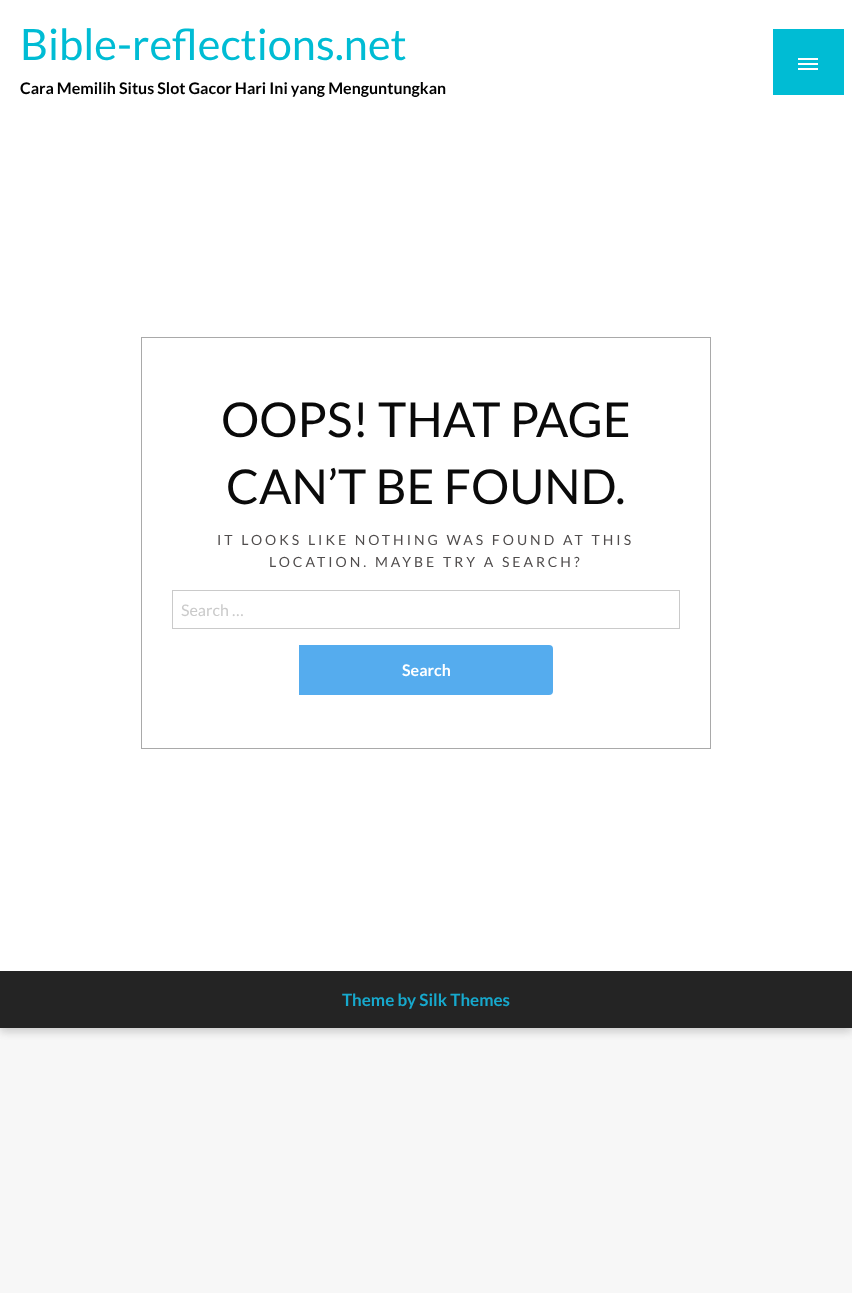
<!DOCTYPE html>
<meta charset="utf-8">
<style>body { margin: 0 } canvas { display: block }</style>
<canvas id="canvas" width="852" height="1293"></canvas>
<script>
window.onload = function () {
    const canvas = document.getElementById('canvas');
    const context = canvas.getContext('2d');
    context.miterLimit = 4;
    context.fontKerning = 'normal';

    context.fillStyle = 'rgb(247, 247, 247)';
    context.fillRect(0, 0, 852, 1293);
    context.fillStyle = 'rgba(0, 0, 0, 0.09)';
    context.filter = 'blur(5px)';
    context.beginPath();
    context.rect(0, 3, 852, 1028);
    context.fill();
    context.filter = 'none';
    context.fillStyle = 'rgba(0, 0, 0, 0.1)';
    context.filter = 'blur(4px)';
    context.beginPath();
    context.rect(0, 4, 852, 1028);
    context.fill();
    context.filter = 'none';
    context.fillStyle = 'rgb(255, 255, 255)';
    context.fillRect(0, 0, 852, 971);
    context.fillStyle = 'rgb(0, 188, 212)';
    context.fillRect(773, 29, 71, 66);
    context.fillStyle = 'rgb(255, 255, 255)';
    context.fillRect(798, 58, 20, 2);
    context.fillRect(798, 63, 20, 2);
    context.fillRect(798, 68, 20, 2);
    context.strokeStyle = 'rgb(169, 169, 169)';
    context.strokeRect(141.5, 337.5, 569, 411);
    context.strokeStyle = 'rgb(202, 202, 202)';
    context.strokeRect(172.5, 590.5, 507, 38);
    context.fillStyle = 'rgb(85, 172, 238)';
    context.beginPath();
    context.roundRect(299, 645, 254, 50, [0, 4, 4, 0]);
    context.fill();
    context.fillStyle = 'rgb(36, 36, 36)';
    context.fillRect(0, 971, 852, 57);
    context.font = '43.25px Lato';
    context.fillStyle = 'rgb(0, 188, 212)';
    context.fillText('Bible-reflections.net', 20, 60);
    context.font = 'bold 16px Lato';
    context.fillStyle = 'rgb(0, 0, 0)';
    context.fillText('Cara Memilih Situs Slot Gacor Hari Ini yang Menguntungkan', 20, 94);
    context.font = '48px Lato';
    context.fillStyle = 'rgb(10, 10, 10)';
    context.fillText('OOPS! THAT PAGE', 221, 437);
    context.fillText('CAN’T BE FOUND.', 226, 504);
    context.letterSpacing = '3px';
    context.font = '14px Lato';
    context.fillStyle = 'rgb(80, 77, 77)';
    context.fillText('IT LOOKS LIKE NOTHING WAS FOUND AT THIS', 217, 545);
    context.fillText('LOCATION. MAYBE TRY A SEARCH?', 269, 567);
    context.letterSpacing = '0px';
    context.font = '16px Lato';
    context.fillStyle = 'rgb(202, 202, 202)';
    context.fillText('Search …', 181, 616);
    context.font = 'bold 16px Lato';
    context.fillStyle = 'rgb(255, 255, 255)';
    context.fillText('Search', 402, 676);
    context.font = 'bold 17px Lato';
    context.fillStyle = 'rgb(23, 169, 205)';
    context.fillText('Theme by Silk Themes', 342, 1006);
};
</script>
